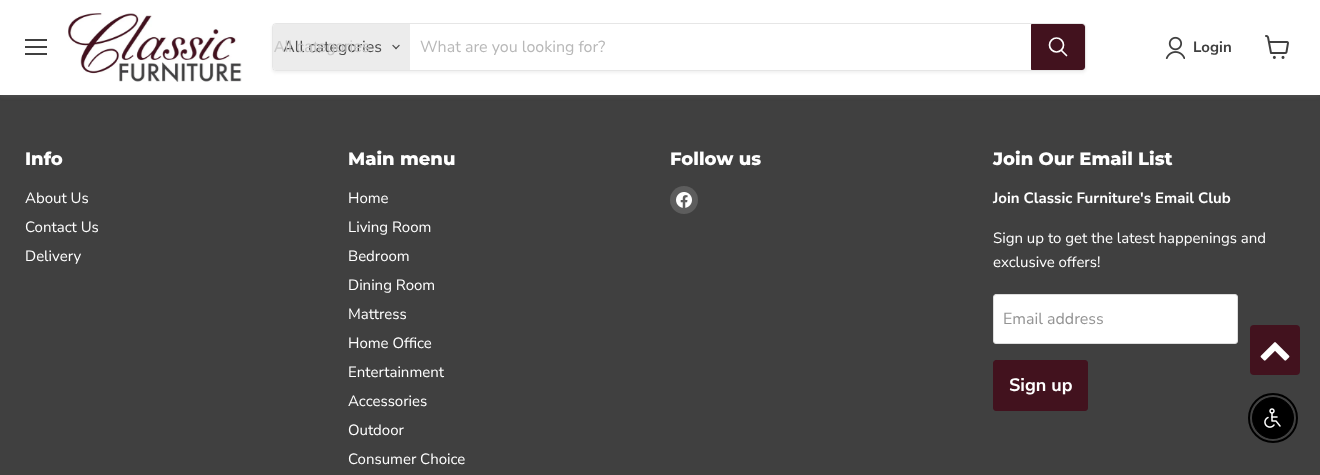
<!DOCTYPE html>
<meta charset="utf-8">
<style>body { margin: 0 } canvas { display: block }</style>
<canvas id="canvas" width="1320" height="475"></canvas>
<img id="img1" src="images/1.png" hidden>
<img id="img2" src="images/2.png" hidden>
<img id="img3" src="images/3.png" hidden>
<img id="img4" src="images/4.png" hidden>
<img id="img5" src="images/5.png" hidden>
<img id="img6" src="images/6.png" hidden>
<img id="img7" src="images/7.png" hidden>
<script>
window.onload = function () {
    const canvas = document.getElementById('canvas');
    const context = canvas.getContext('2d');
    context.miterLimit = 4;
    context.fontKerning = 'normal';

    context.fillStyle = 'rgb(64, 64, 64)';
    context.fillRect(0, 0, 1320, 475);
    context.fillStyle = 'rgba(128, 128, 128, 0.25)';
    context.filter = 'blur(2px)';
    context.beginPath();
    context.rect(0, 1, 1320, 95);
    context.fill();
    context.filter = 'none';
    context.fillStyle = 'rgb(255, 255, 255)';
    context.fillRect(0, 0, 1320, 95);
    context.fillStyle = 'rgb(64, 64, 64)';
    context.fillRect(25, 39, 22, 2);
    context.fillRect(25, 46, 22, 2);
    context.fillRect(25, 53, 22, 2);
    context.drawImage(document.getElementById('img1'), 68, 13, 174, 69);
    context.save();
    context.beginPath();
    context.moveTo(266, 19);
    context.lineTo(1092, 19);
    context.lineTo(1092, 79);
    context.lineTo(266, 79);
    context.closePath();
    context.moveTo(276, 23);
    context.lineTo(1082, 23);
    context.bezierCurveTo(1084, 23, 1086, 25, 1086, 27);
    context.lineTo(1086, 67);
    context.bezierCurveTo(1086, 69, 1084, 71, 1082, 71);
    context.lineTo(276, 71);
    context.bezierCurveTo(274, 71, 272, 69, 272, 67);
    context.lineTo(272, 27);
    context.bezierCurveTo(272, 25, 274, 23, 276, 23);
    context.closePath();
    context.clip('evenodd');
    context.fillStyle = 'rgba(128, 128, 128, 0.11)';
    context.filter = 'blur(1.5px)';
    context.beginPath();
    context.roundRect(272, 25, 814, 48, 4);
    context.fill();
    context.filter = 'none';
    context.restore();
    context.beginPath();
    context.roundRect(272.5, 23.5, 813, 47, 3.5);
    context.strokeStyle = 'rgba(128, 128, 128, 0.2)';
    context.stroke();
    context.fillStyle = 'rgb(236, 236, 236)';
    context.beginPath();
    context.roundRect(273, 24, 137, 46, [3, 0, 0, 3]);
    context.fill();
    context.drawImage(document.getElementById('img2'), 392, 44, 8, 6);
    context.fillStyle = 'rgb(66, 18, 30)';
    context.beginPath();
    context.roundRect(1031.5, 24.5, 53, 45, [0, 2.5, 2.5, 0]);
    context.fill();
    context.strokeStyle = 'rgb(66, 18, 30)';
    context.stroke();
    context.beginPath();
    context.moveTo(1066.5, 55.5);
    context.lineTo(1061.5, 50.5);
    context.strokeStyle = 'rgb(255, 255, 255)';
    context.lineWidth = 1.7;
    context.lineCap = 'round';
    context.stroke();
    context.beginPath();
    context.arc(1056.5, 45, 7, 0, 2 * Math.PI);
    context.stroke();
    context.drawImage(document.getElementById('img3'), 1165, 36, 20, 23);
    context.drawImage(document.getElementById('img4'), 1265, 35, 24, 24);
    context.fillStyle = 'rgb(93, 93, 93)';
    context.beginPath();
    context.arc(684, 200, 14, 0, 2 * Math.PI);
    context.fill();
    context.drawImage(document.getElementById('img5'), 676, 192, 16, 16);
    context.fillStyle = 'rgb(255, 255, 255)';
    context.beginPath();
    context.roundRect(993.5, 294.5, 244, 49, 2.5);
    context.fill();
    context.strokeStyle = 'rgb(221, 221, 221)';
    context.lineWidth = 1;
    context.stroke();
    context.fillStyle = 'rgb(66, 18, 30)';
    context.beginPath();
    context.roundRect(993.5, 360.5, 94, 50, 2.5);
    context.fill();
    context.strokeStyle = 'rgb(66, 18, 30)';
    context.stroke();
    context.beginPath();
    context.roundRect(1250, 325, 50, 50, 4);
    context.fill();
    context.drawImage(document.getElementById('img6'), 1260, 342, 30, 19);
    context.beginPath();
    context.arc(1273, 418, 24, 0, 2 * Math.PI);
    context.strokeStyle = 'rgb(0, 0, 0)';
    context.lineWidth = 2;
    context.stroke();
    context.fillStyle = 'rgb(0, 0, 0)';
    context.beginPath();
    context.arc(1273, 418, 20.5, 0, 2 * Math.PI);
    context.fill();
    context.lineWidth = 1;
    context.stroke();
    context.drawImage(document.getElementById('img7'), 1264, 408, 17, 20);
    context.font = '16px Nunito Sans';
    context.fillStyle = 'rgb(77, 77, 77)';
    context.fillText('All categories', 283, 52);
    context.font = '16px Liberation Sans';
    context.fillStyle = 'rgb(200, 200, 200)';
    context.fillText('All categories', 274, 52);
    context.font = '16px Nunito Sans';
    context.fillStyle = 'rgb(184, 184, 184)';
    context.fillText('What are you looking for?', 420, 52);
    context.font = 'bold 15px Nunito Sans';
    context.fillStyle = 'rgb(64, 64, 64)';
    context.fillText('Login', 1193, 52);
    context.font = '800 18px Montserrat';
    context.fillStyle = 'rgb(255, 255, 255)';
    context.fillText('Info', 25, 165);
    context.font = '15px Nunito Sans';
    context.fillText('About Us', 25, 203);
    context.fillText('Contact Us', 25, 232);
    context.fillText('Delivery', 25, 261);
    context.font = '800 18px Montserrat';
    context.fillText('Main menu', 348, 165);
    context.font = '15px Nunito Sans';
    context.fillText('Home', 348, 203);
    context.fillText('Living Room', 348, 232);
    context.fillText('Bedroom', 348, 261);
    context.fillText('Dining Room', 348, 290);
    context.fillText('Mattress', 348, 319);
    context.fillText('Home Office', 348, 348);
    context.fillText('Entertainment', 348, 377);
    context.fillText('Accessories', 348, 406);
    context.fillText('Outdoor', 348, 435);
    context.fillText('Consumer Choice', 348, 464);
    context.font = '800 18px Montserrat';
    context.fillText('Follow us', 670, 165);
    context.fillText('Join Our Email List', 993, 165);
    context.font = 'bold 15px Nunito Sans';
    context.fillText('Join Classic Furniture\'s Email Club', 993, 203);
    context.font = '15px Nunito Sans';
    context.fillText('Sign up to get the latest happenings and', 993, 243);
    context.fillText('exclusive offers!', 993, 267);
    context.font = '16px Nunito Sans';
    context.fillStyle = 'rgb(148, 148, 148)';
    context.fillText('Email address', 1003, 324);
    context.font = 'bold 18px Nunito Sans';
    context.fillStyle = 'rgb(255, 255, 255)';
    context.fillText('Sign up', 1009, 391);
};
</script>
